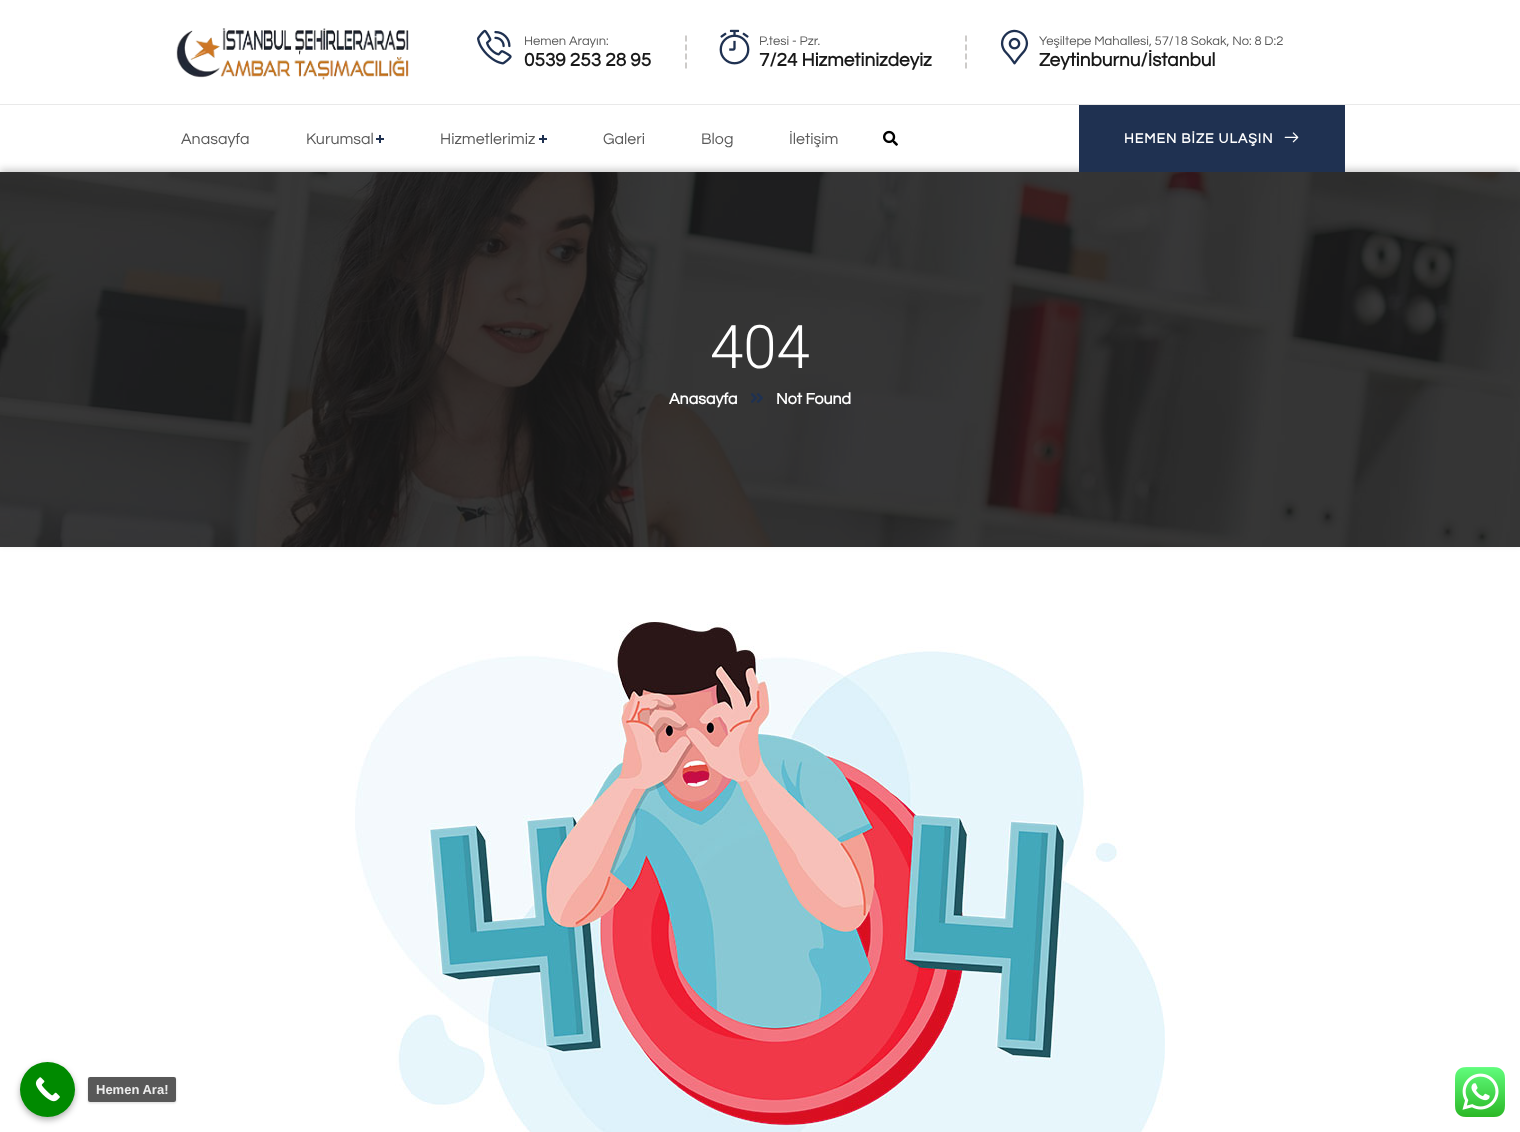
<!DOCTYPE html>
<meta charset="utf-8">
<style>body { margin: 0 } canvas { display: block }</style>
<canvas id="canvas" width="1520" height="1132"></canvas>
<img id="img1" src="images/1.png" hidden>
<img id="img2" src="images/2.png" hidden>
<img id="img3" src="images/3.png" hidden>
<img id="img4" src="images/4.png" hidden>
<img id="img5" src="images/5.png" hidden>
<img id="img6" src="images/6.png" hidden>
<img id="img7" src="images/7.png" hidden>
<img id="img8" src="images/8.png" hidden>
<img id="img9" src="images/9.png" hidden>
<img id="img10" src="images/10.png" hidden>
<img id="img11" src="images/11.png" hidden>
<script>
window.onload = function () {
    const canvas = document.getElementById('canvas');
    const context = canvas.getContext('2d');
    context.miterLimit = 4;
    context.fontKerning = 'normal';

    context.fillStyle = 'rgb(255, 255, 255)';
    context.fillRect(0, 0, 1520, 1132);
    context.fillStyle = 'rgb(233, 233, 233)';
    context.fillRect(0, 104, 1520, 1);
    context.drawImage(document.getElementById('img1'), 176, 28, 233, 52);
    context.drawImage(document.getElementById('img2'), 477, 29, 35, 36);
    context.beginPath();
    context.moveTo(686, 35.5);
    context.lineTo(686, 68.5);
    context.strokeStyle = 'rgb(205, 203, 201)';
    context.lineWidth = 2;
    context.setLineDash([6, 3]);
    context.stroke();
    context.drawImage(document.getElementById('img3'), 719, 29, 31, 36);
    context.beginPath();
    context.moveTo(966, 35.5);
    context.lineTo(966, 68.5);
    context.stroke();
    context.drawImage(document.getElementById('img4'), 1000, 29, 29, 36);
    context.fillStyle = 'rgb(31, 49, 81)';
    context.fillRect(376, 138, 8, 2);
    context.fillRect(379, 135, 2, 8);
    context.fillRect(539, 138, 8, 2);
    context.fillRect(542, 135, 2, 8);
    context.drawImage(document.getElementById('img5'), 883, 130, 15, 16);
    context.fillStyle = 'rgba(12, 12, 12, 0.2)';
    context.filter = 'blur(3.5px)';
    context.beginPath();
    context.rect(0, 169, 1520, 375);
    context.fill();
    context.filter = 'none';
    context.fillStyle = 'rgb(31, 49, 81)';
    context.fillRect(1079, 105, 266, 67);
    context.drawImage(document.getElementById('img6'), 1284, 132, 15, 11);
    context.drawImage(document.getElementById('img7'), 0, 172, 1520, 375);
    context.drawImage(document.getElementById('img8'), 751, 393, 12, 10);
    context.drawImage(document.getElementById('img9'), 355, 622, 810, 510);
    context.fillStyle = 'rgba(0, 0, 0, 0.3)';
    context.filter = 'blur(3px)';
    context.beginPath();
    context.roundRect(20, 1065, 55, 55, 27.5);
    context.fill();
    context.filter = 'none';
    context.fillStyle = 'rgb(0, 138, 0)';
    context.beginPath();
    context.arc(47.5, 1089.5, 27.5, 0, 2 * Math.PI);
    context.fill();
    context.drawImage(document.getElementById('img10'), 35, 1077, 25, 25);
    context.save();
    context.beginPath();
    context.moveTo(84, 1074);
    context.lineTo(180, 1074);
    context.lineTo(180, 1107);
    context.lineTo(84, 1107);
    context.closePath();
    context.moveTo(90, 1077);
    context.lineTo(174, 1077);
    context.bezierCurveTo(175, 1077, 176, 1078, 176, 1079);
    context.lineTo(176, 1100);
    context.bezierCurveTo(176, 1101, 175, 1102, 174, 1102);
    context.lineTo(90, 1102);
    context.bezierCurveTo(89, 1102, 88, 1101, 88, 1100);
    context.lineTo(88, 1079);
    context.bezierCurveTo(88, 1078, 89, 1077, 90, 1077);
    context.closePath();
    context.clip('evenodd');
    context.fillStyle = 'rgba(0, 0, 0, 0.15)';
    context.filter = 'blur(1px)';
    context.beginPath();
    context.roundRect(88, 1078, 88, 25, 2);
    context.fill();
    context.filter = 'none';
    context.restore();
    context.fillStyle = 'rgba(70, 70, 70, 0.9)';
    context.beginPath();
    context.roundRect(88, 1077, 88, 25, 2);
    context.fill();
    context.drawImage(document.getElementById('img11'), 1455, 1067, 50, 50);
    context.font = '13px Questrial';
    context.fillStyle = 'rgb(90, 90, 90)';
    context.fillText('Hemen Arayın:', 524, 45);
    context.font = 'bold 19px Questrial';
    context.fillStyle = 'rgb(25, 25, 25)';
    context.fillText('0539 253 28 95', 524, 66);
    context.font = '13px Questrial';
    context.fillStyle = 'rgb(90, 90, 90)';
    context.fillText('P.tesi - Pzr.', 759, 45);
    context.font = 'bold 19px Questrial';
    context.fillStyle = 'rgb(25, 25, 25)';
    context.fillText('7/24 Hizmetinizdeyiz', 759, 66);
    context.font = '13px Questrial';
    context.fillStyle = 'rgb(90, 90, 90)';
    context.fillText('Yeşiltepe Mahallesi, 57/18 Sokak, No: 8 D:2', 1039, 45);
    context.font = 'bold 19px Questrial';
    context.fillStyle = 'rgb(25, 25, 25)';
    context.fillText('Zeytinburnu/İstanbul', 1039, 66);
    context.font = '16px Questrial';
    context.fillStyle = 'rgb(90, 90, 90)';
    context.fillText('Anasayfa', 181, 144);
    context.fillText('Kurumsal', 306, 144);
    context.fillText('Hizmetlerimiz', 440, 144);
    context.fillText('Galeri', 603, 144);
    context.fillText('Blog', 701, 144);
    context.fillText('İletişim', 789, 144);
    context.letterSpacing = '1px';
    context.font = 'bold 14px Questrial';
    context.fillStyle = 'rgb(255, 255, 255)';
    context.fillText('HEMEN BİZE ULAŞIN', 1124, 143);
    context.letterSpacing = '0px';
    context.font = '300 60px Roboto';
    context.fillText('404', 710, 368);
    context.font = 'bold 16px Questrial';
    context.fillText('Anasayfa', 669, 404);
    context.fillText('Not Found', 776, 404);
    context.font = 'bold 13px Liberation Sans';
    context.fillStyle = 'rgb(236, 236, 236)';
    context.fillText('Hemen Ara!', 96, 1094);
};
</script>
